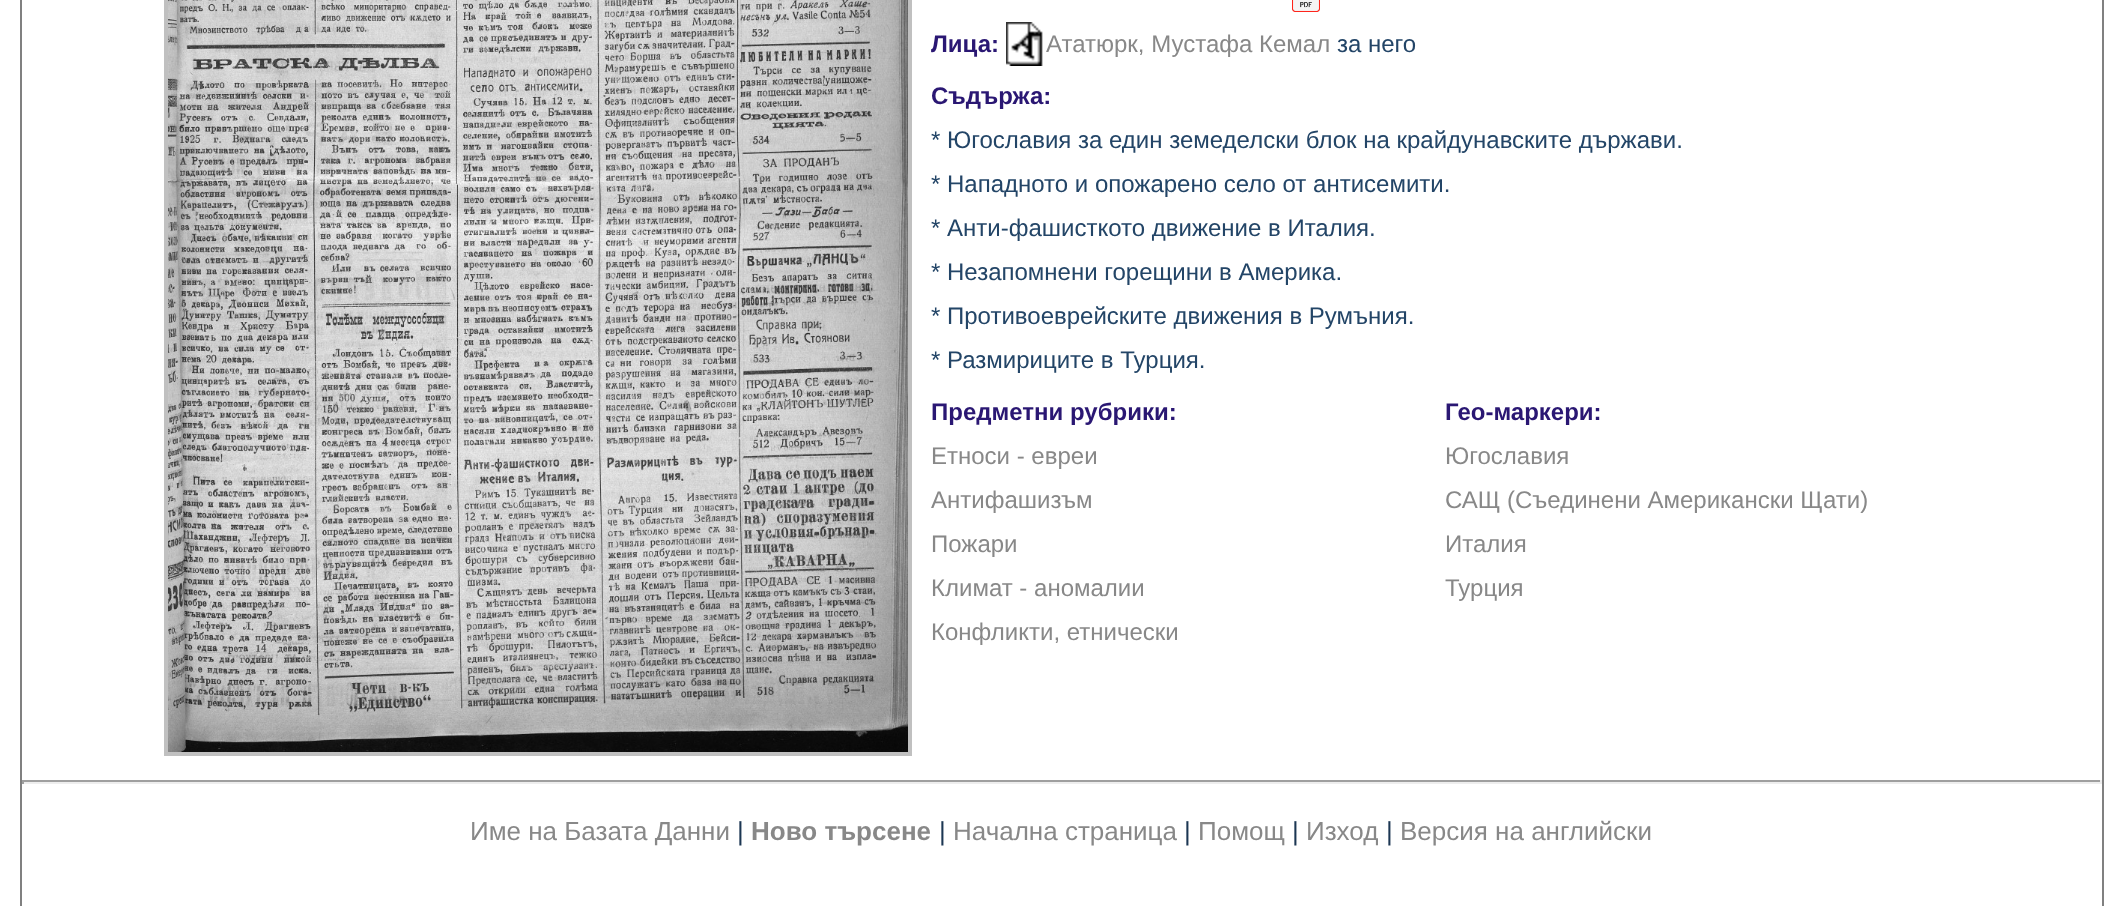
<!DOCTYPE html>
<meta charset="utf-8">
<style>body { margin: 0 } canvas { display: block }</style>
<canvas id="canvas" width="2122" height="906"></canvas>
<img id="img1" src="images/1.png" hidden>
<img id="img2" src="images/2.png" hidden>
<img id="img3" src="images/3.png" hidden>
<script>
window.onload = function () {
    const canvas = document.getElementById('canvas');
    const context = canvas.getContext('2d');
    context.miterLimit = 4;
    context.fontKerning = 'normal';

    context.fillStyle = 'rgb(255, 255, 255)';
    context.fillRect(0, 0, 2122, 906);
    context.strokeStyle = 'rgb(128, 128, 128)';
    context.lineWidth = 2;
    context.strokeRect(21, -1, 2082, 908);
    context.strokeStyle = 'rgb(192, 192, 192)';
    context.lineWidth = 4;
    context.strokeRect(166, -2, 744, 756);
    context.drawImage(document.getElementById('img1'), 168, 0, 740, 752);
    context.drawImage(document.getElementById('img2'), 1292, 0, 28, 12);
    context.drawImage(document.getElementById('img3'), 1006, 22, 37, 44);
    context.fillStyle = 'rgb(159, 159, 159)';
    context.fillRect(22, 780, 2080, 2);
    context.fillStyle = 'rgb(238, 238, 238)';
    context.fillRect(2100, 780, 2, 4);
    context.fillRect(22, 782, 2080, 2);
    context.fillStyle = 'rgb(159, 159, 159)';
    context.fillRect(22, 780, 2, 4);
    context.font = 'bold 24px Liberation Sans';
    context.fillStyle = 'rgb(42, 23, 115)';
    context.fillText('Лица:', 931, 52);
    context.font = '24px Liberation Sans';
    context.fillStyle = 'rgb(136, 136, 136)';
    context.fillText('Ататюрк, Мустафа Кемал', 1046, 52);
    context.fillStyle = 'rgb(35, 69, 103)';
    context.fillText('за него', 1337, 52);
    context.font = 'bold 24px Liberation Sans';
    context.fillStyle = 'rgb(42, 23, 115)';
    context.fillText('Съдържа:', 931, 104);
    context.font = '24px Liberation Sans';
    context.fillStyle = 'rgb(35, 69, 103)';
    context.fillText('* Югославия за един земеделски блок на крайдунавските държави.', 931, 148);
    context.fillText('* Нападното и опожарено село от антисемити.', 931, 192);
    context.fillText('* Анти-фашисткото движение в Италия.', 931, 236);
    context.fillText('* Незапомнени горещини в Америка.', 931, 280);
    context.fillText('* Противоеврейските движения в Румъния.', 931, 324);
    context.fillText('* Размириците в Турция.', 931, 368);
    context.font = 'bold 24px Liberation Sans';
    context.fillStyle = 'rgb(42, 23, 115)';
    context.fillText('Предметни рубрики:', 931, 420);
    context.font = '24px Liberation Sans';
    context.fillStyle = 'rgb(136, 136, 136)';
    context.fillText('Етноси - евреи', 931, 464);
    context.fillText('Антифашизъм', 931, 508);
    context.fillText('Пожари', 931, 552);
    context.fillText('Климат - аномалии', 931, 596);
    context.fillText('Конфликти, етнически', 931, 640);
    context.font = 'bold 24px Liberation Sans';
    context.fillStyle = 'rgb(42, 23, 115)';
    context.fillText('Гео-маркери:', 1445, 420);
    context.font = '24px Liberation Sans';
    context.fillStyle = 'rgb(136, 136, 136)';
    context.fillText('Югославия', 1445, 464);
    context.fillText('САЩ (Съединени Американски Щати)', 1445, 508);
    context.fillText('Италия', 1445, 552);
    context.fillText('Турция', 1445, 596);
    context.font = '26px Liberation Sans';
    context.fillText('Име на Базата Данни', 470, 840);
    context.fillStyle = 'rgb(28, 55, 83)';
    context.fillText('|', 737, 840);
    context.font = 'bold 26px Liberation Sans';
    context.fillStyle = 'rgb(136, 136, 136)';
    context.fillText('Ново търсене', 751, 840);
    context.font = '26px Liberation Sans';
    context.fillStyle = 'rgb(28, 55, 83)';
    context.fillText('|', 939, 840);
    context.fillStyle = 'rgb(136, 136, 136)';
    context.fillText('Начална страница', 953, 840);
    context.fillStyle = 'rgb(28, 55, 83)';
    context.fillText('|', 1184, 840);
    context.fillStyle = 'rgb(136, 136, 136)';
    context.fillText('Помощ', 1198, 840);
    context.fillStyle = 'rgb(28, 55, 83)';
    context.fillText('|', 1292, 840);
    context.fillStyle = 'rgb(136, 136, 136)';
    context.fillText('Изход', 1306, 840);
    context.fillStyle = 'rgb(28, 55, 83)';
    context.fillText('|', 1386, 840);
    context.fillStyle = 'rgb(136, 136, 136)';
    context.fillText('Версия на английски', 1400, 840);
};
</script>
